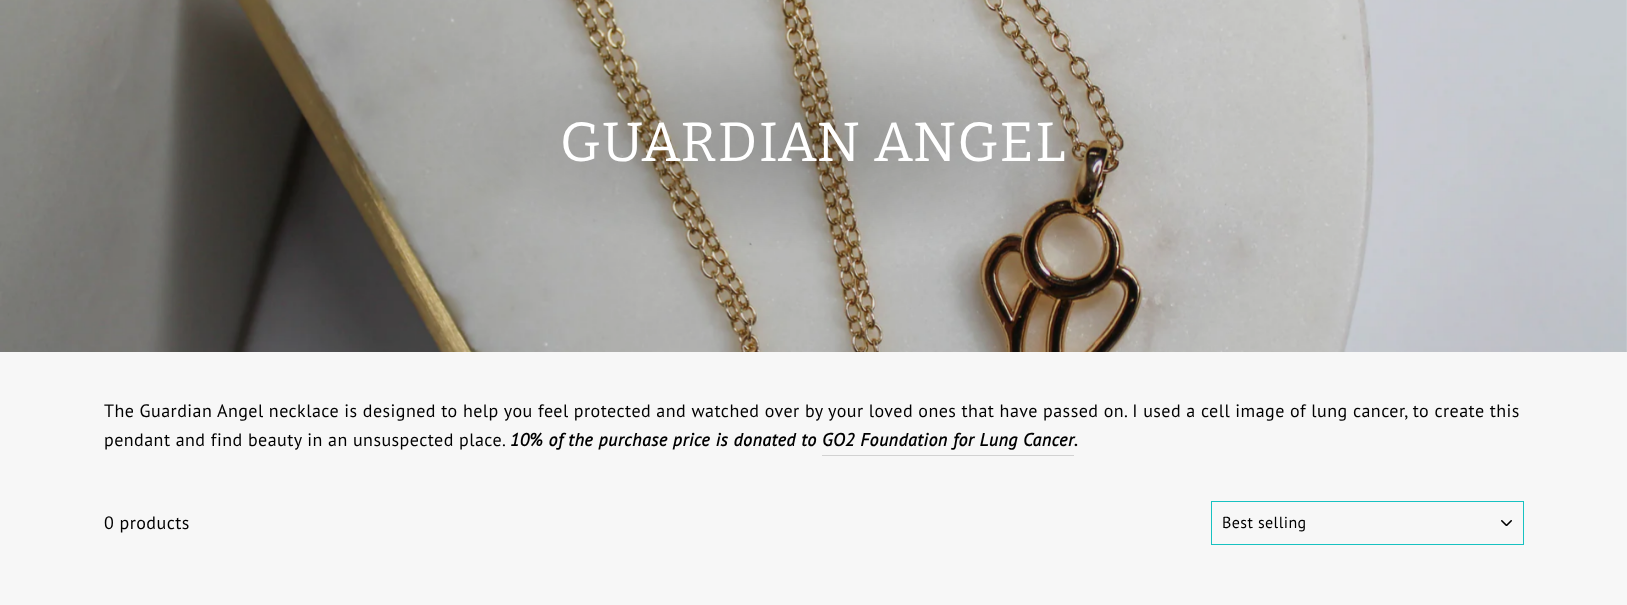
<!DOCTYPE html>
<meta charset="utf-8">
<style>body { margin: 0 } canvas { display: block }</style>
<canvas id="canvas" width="1627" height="605"></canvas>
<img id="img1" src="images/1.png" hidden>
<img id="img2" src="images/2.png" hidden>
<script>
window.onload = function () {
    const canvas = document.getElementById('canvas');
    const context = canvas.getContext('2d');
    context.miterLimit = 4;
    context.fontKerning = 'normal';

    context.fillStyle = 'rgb(247, 247, 247)';
    context.fillRect(0, 0, 1627, 605);
    context.drawImage(document.getElementById('img1'), 0, 0, 1627, 352);
    context.fillStyle = 'rgb(210, 210, 210)';
    context.fillRect(822, 455, 252, 1);
    context.drawImage(document.getElementById('img2'), 1501, 520, 11, 6);
    context.strokeStyle = 'rgb(23, 193, 193)';
    context.strokeRect(1211.5, 501.5, 312, 43);
    context.letterSpacing = '1.4px';
    context.font = '55px Bitter';
    context.fillStyle = 'rgb(255, 255, 255)';
    context.fillText('GUARDIAN ANGEL', 560, 161);
    context.letterSpacing = '0.45px';
    context.font = '18px PT Sans';
    context.fillStyle = 'rgb(0, 0, 0)';
    context.fillText('The Guardian Angel necklace is designed to help you feel protected and watched over by your loved ones that have passed on. I used a cell image of lung cancer, to create this', 104, 417);
    context.fillText('pendant and find beauty in an unsuspected place.', 104, 446);
    context.font = 'italic bold 18px PT Sans';
    context.fillText('10% of the purchase price is donated to', 510, 446);
    context.fillText('.', 1074, 446);
    context.fillText('GO2 Foundation for Lung Cancer', 822, 446);
    context.font = '18px PT Sans';
    context.fillText('0 products', 104, 529);
    context.letterSpacing = '0.4px';
    context.font = '16px PT Sans';
    context.fillText('Best selling', 1222, 528);
};
</script>
